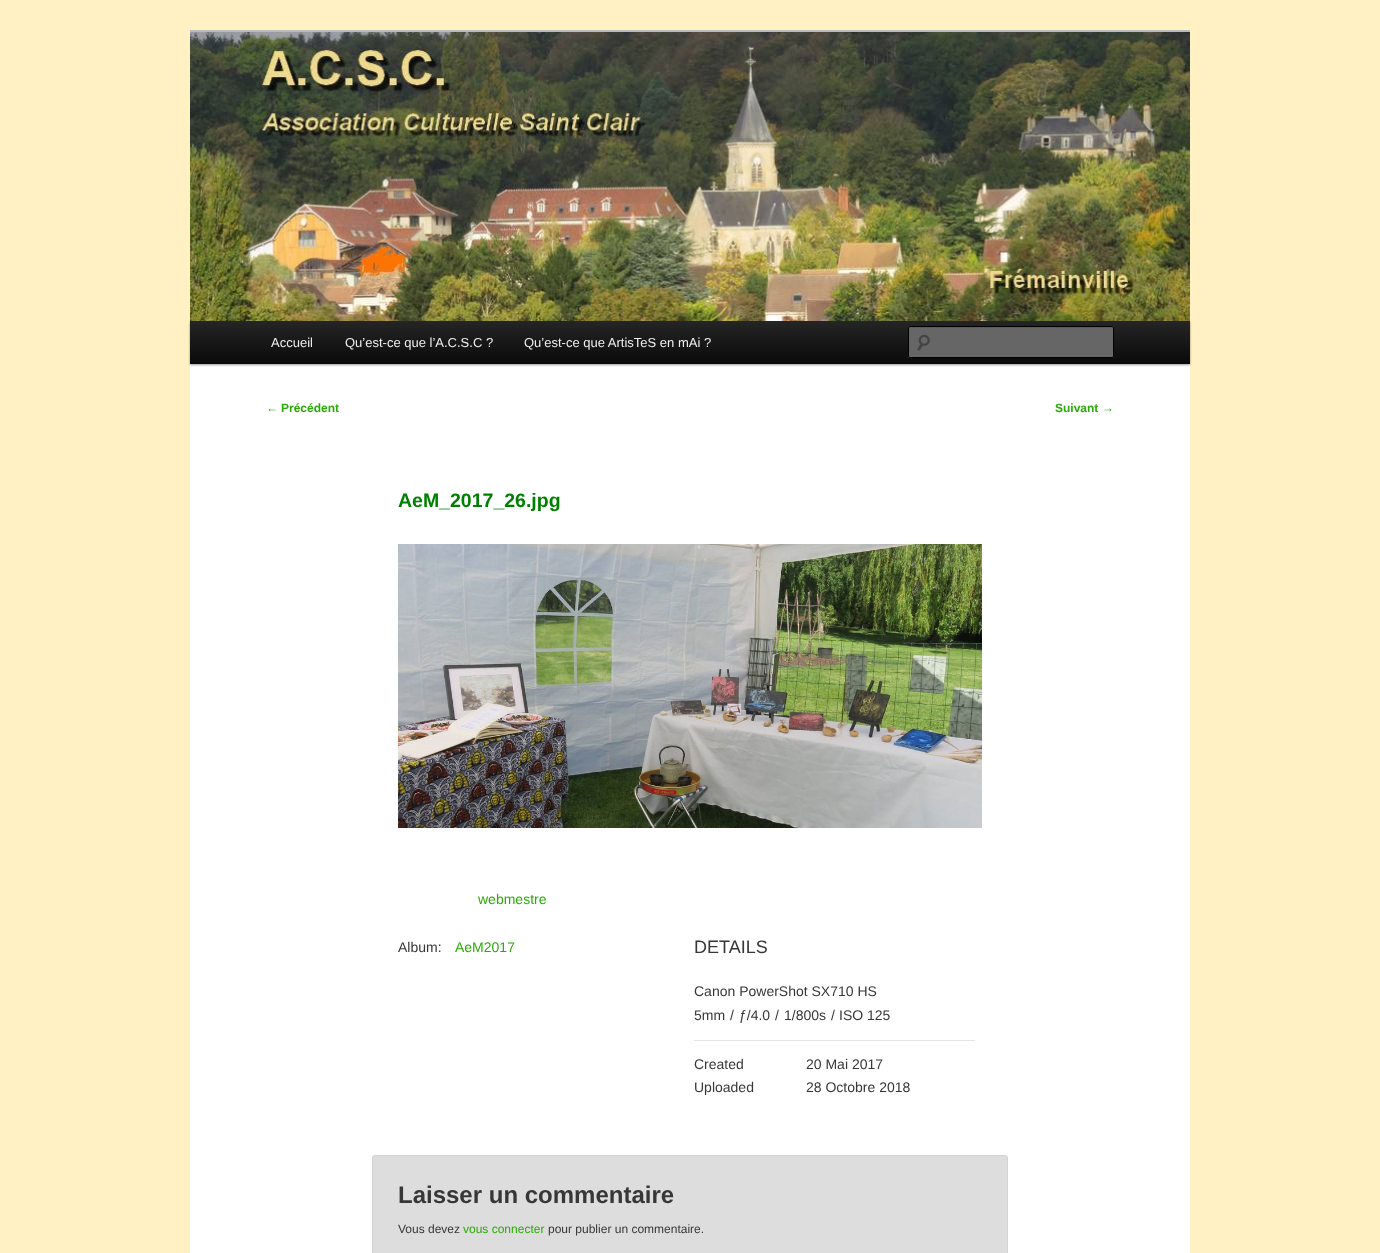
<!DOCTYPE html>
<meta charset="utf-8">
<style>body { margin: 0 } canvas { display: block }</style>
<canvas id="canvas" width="1380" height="1253"></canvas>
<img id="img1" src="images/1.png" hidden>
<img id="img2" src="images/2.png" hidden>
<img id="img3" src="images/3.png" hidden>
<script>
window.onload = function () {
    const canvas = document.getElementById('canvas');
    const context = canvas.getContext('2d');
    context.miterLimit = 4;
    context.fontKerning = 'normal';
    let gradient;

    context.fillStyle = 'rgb(255, 241, 196)';
    context.fillRect(0, 0, 1380, 1253);
    context.fillStyle = 'rgb(255, 255, 255)';
    context.fillRect(190, 364, 1000, 889);
    context.fillStyle = 'rgb(187, 187, 187)';
    context.fillRect(190, 30, 1000, 2);
    context.fillStyle = 'rgba(0, 0, 0, 0.4)';
    context.filter = 'blur(1px)';
    context.beginPath();
    context.rect(190, 322, 1000, 43);
    context.fill();
    context.filter = 'none';
    context.drawImage(document.getElementById('img1'), 190, 32, 1000, 289);
    gradient = context.createLinearGradient(690, 321, 690, 364);
    gradient.addColorStop(0, 'rgb(37, 37, 37)');
    gradient.addColorStop(1, 'rgb(10, 10, 10)');
    context.fillStyle = gradient;
    context.fillRect(190, 321, 1000, 43);
    context.fillStyle = 'rgb(102, 102, 102)';
    context.beginPath();
    context.roundRect(908, 326, 206, 32, 2);
    context.fill();
    context.drawImage(document.getElementById('img2'), 917, 334, 13, 17);
    context.fillStyle = 'rgb(92, 92, 92)';
    context.beginPath();
    context.moveTo(910, 328);
    context.lineTo(1113, 328);
    context.lineTo(1113, 329);
    context.lineTo(1113, 327);
    context.lineTo(1112, 327);
    context.lineTo(910, 327);
    context.bezierCurveTo(909, 327, 909, 328, 909, 329);
    context.bezierCurveTo(909, 328, 909, 328, 910, 328);
    context.closePath();
    context.fill();
    context.beginPath();
    context.roundRect(908.5, 326.5, 205, 31, 1.5);
    context.strokeStyle = 'rgb(0, 0, 0)';
    context.stroke();
    context.drawImage(document.getElementById('img3'), 398, 544, 584, 284);
    context.fillStyle = 'rgb(230, 230, 230)';
    context.fillRect(694, 1040, 281, 1);
    context.fillStyle = 'rgb(221, 221, 221)';
    context.beginPath();
    context.roundRect(372.5, 1155.5, 635, 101, 2.5);
    context.fill();
    context.strokeStyle = 'rgb(211, 211, 211)';
    context.stroke();
    context.font = '13px Liberation Sans';
    context.fillStyle = 'rgb(238, 238, 238)';
    context.fillText('Accueil', 271, 347);
    context.fillText('Qu’est-ce que l’A.C.S.C ?', 345, 347);
    context.fillText('Qu’est-ce que ArtisTeS en mAi ?', 524, 347);
    context.font = '12px Liberation Sans';
    context.fillStyle = 'rgb(43, 170, 8)';
    context.fillText('←', 266, 412);
    context.font = 'bold 12px Liberation Sans';
    context.fillText('Précédent', 281, 412);
    context.fillText('Suivant', 1055, 412);
    context.font = '12px Liberation Sans';
    context.fillText('→', 1102, 412);
    context.font = 'bold 19.5px Liberation Sans';
    context.fillStyle = 'rgb(0, 128, 0)';
    context.fillText('AeM_2017_26.jpg', 398, 507);
    context.font = '14px Liberation Sans';
    context.fillStyle = 'rgb(43, 170, 8)';
    context.fillText('webmestre', 478, 904);
    context.fillStyle = 'rgb(55, 55, 55)';
    context.fillText('Album:', 398, 952);
    context.fillStyle = 'rgb(43, 170, 8)';
    context.fillText('AeM2017', 455, 952);
    context.font = '18px Liberation Sans';
    context.fillStyle = 'rgb(55, 55, 55)';
    context.fillText('DETAILS', 694, 953);
    context.font = '14px Liberation Sans';
    context.fillText('Canon PowerShot SX710 HS', 694, 996);
    context.fillText('5mm', 694, 1020);
    context.fillText('/', 730, 1020);
    context.fillText('ƒ/4.0', 739, 1020);
    context.fillText('/', 775, 1020);
    context.fillText('1/800s', 784, 1020);
    context.fillText('/', 831, 1020);
    context.fillText('ISO 125', 839, 1020);
    context.fillText('Created', 694, 1069);
    context.fillText('20 Mai 2017', 806, 1069);
    context.fillText('Uploaded', 694, 1092);
    context.fillText('28 Octobre 2018', 806, 1092);
    context.font = 'bold 24px Liberation Sans';
    context.fillText('Laisser un commentaire', 398, 1203);
    context.font = '12px Liberation Sans';
    context.fillText('Vous devez', 398, 1233);
    context.fillStyle = 'rgb(43, 170, 8)';
    context.fillText('vous connecter', 463, 1233);
    context.fillStyle = 'rgb(55, 55, 55)';
    context.fillText('pour publier un commentaire.', 548, 1233);
};
</script>
